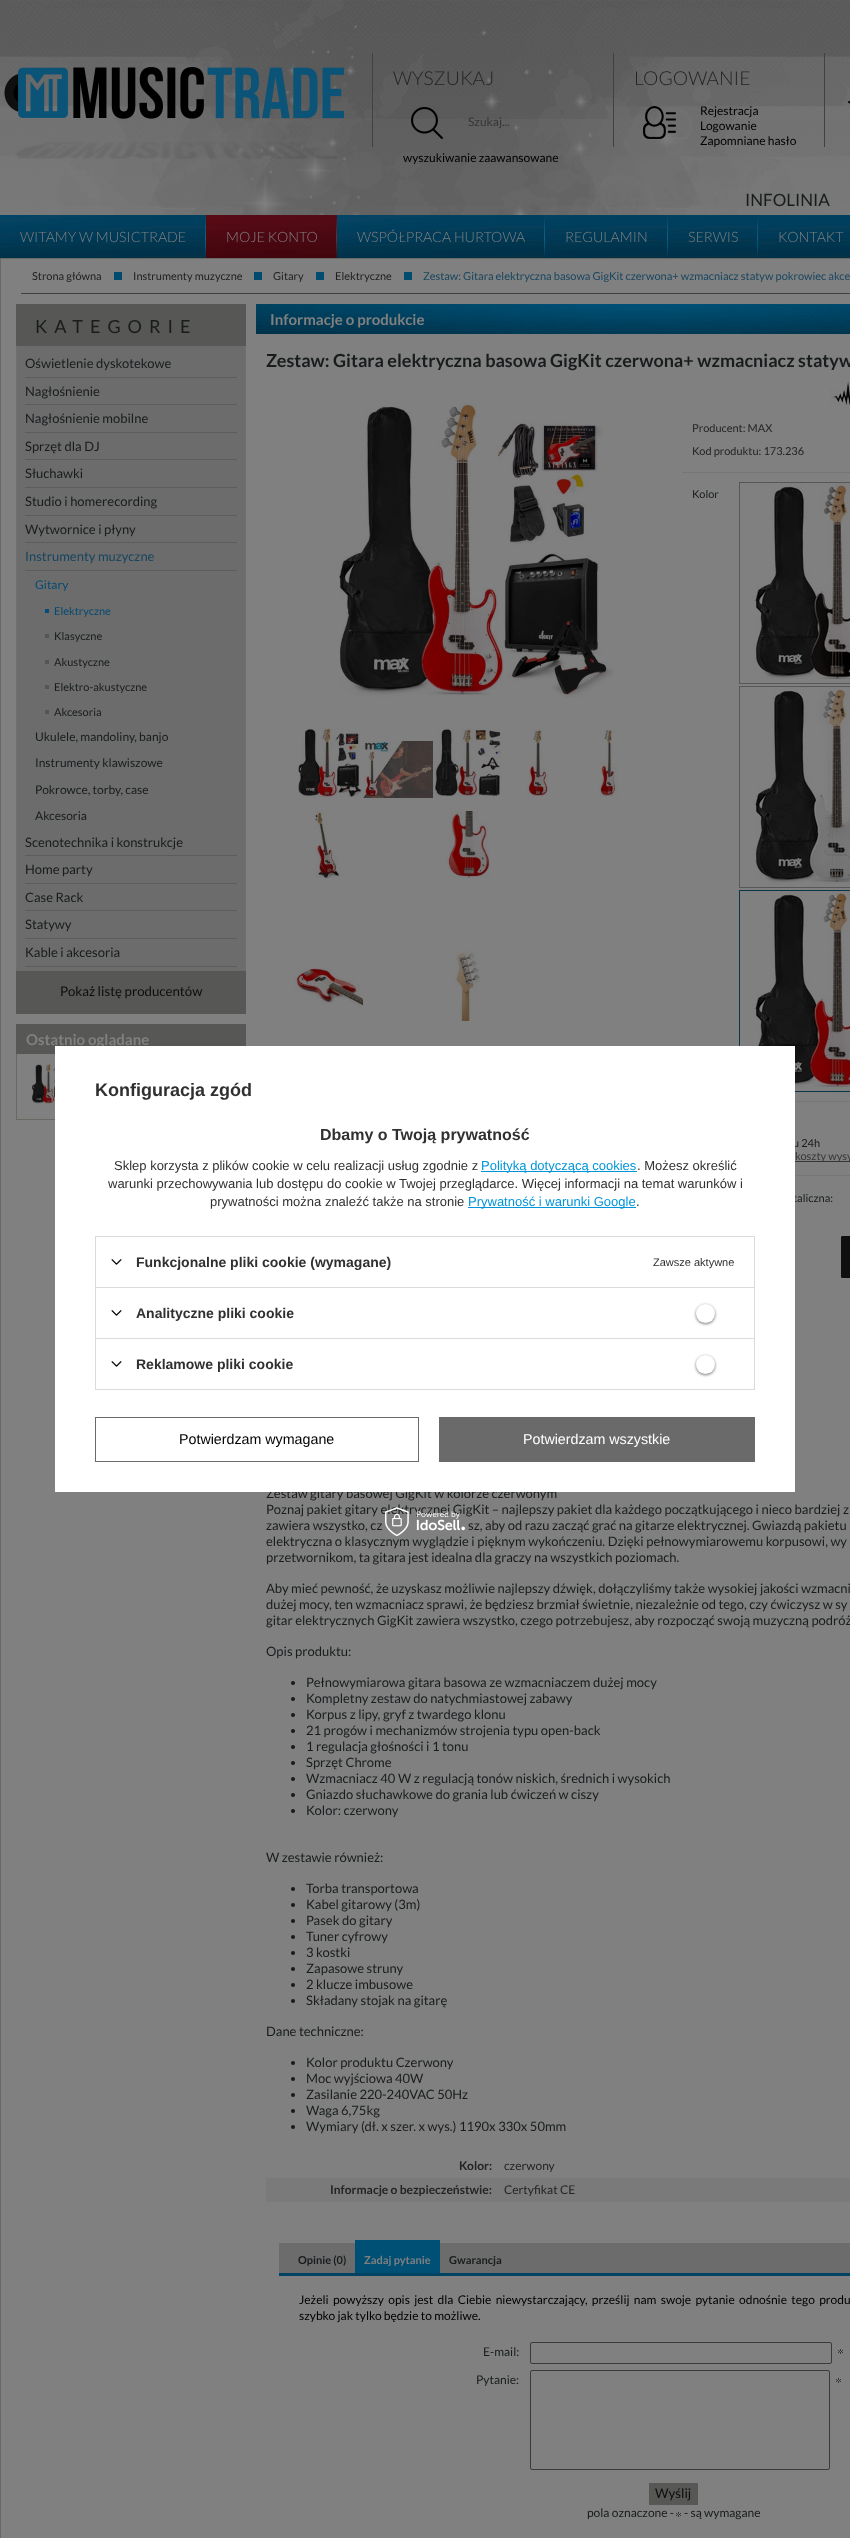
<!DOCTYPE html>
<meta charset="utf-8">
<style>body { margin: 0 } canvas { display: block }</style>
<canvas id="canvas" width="850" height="2538"></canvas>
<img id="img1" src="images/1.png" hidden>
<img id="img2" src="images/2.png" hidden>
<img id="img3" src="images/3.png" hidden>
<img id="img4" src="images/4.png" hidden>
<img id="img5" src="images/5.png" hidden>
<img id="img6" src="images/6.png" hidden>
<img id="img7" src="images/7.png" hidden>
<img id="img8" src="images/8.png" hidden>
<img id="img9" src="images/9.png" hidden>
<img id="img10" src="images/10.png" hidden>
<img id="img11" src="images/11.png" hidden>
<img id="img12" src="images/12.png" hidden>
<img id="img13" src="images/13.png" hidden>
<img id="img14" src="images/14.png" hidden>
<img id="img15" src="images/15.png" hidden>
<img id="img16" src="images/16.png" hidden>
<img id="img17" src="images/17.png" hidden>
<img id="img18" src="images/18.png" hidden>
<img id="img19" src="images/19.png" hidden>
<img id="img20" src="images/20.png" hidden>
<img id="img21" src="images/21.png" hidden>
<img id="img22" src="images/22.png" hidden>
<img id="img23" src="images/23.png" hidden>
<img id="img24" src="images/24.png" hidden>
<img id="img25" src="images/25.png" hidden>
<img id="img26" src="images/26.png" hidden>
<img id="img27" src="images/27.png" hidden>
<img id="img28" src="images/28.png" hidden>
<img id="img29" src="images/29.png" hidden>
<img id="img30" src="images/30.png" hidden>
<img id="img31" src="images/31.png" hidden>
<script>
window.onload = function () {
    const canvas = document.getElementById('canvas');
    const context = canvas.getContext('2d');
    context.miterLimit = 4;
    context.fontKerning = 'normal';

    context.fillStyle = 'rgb(255, 255, 255)';
    context.fillRect(0, 0, 850, 2538);
    context.drawImage(document.getElementById('img1'), 0, 0, 850, 215);
    context.drawImage(document.getElementById('img2'), 4, 67, 340, 92);
    context.fillStyle = 'rgb(65, 65, 65)';
    context.fillRect(372, 53, 1, 94);
    context.drawImage(document.getElementById('img3'), 411, 107, 32, 32);
    context.drawImage(document.getElementById('img4'), 643, 106, 33, 33);
    context.fillRect(613, 53, 1, 94);
    context.fillRect(824, 53, 1, 94);
    context.drawImage(document.getElementById('img5'), 848, 101, 2, 3);
    context.drawImage(document.getElementById('img6'), 0, 215, 206, 43);
    context.drawImage(document.getElementById('img7'), 206, 215, 131, 43);
    context.drawImage(document.getElementById('img8'), 337, 215, 208, 43);
    context.drawImage(document.getElementById('img9'), 545, 215, 123, 43);
    context.drawImage(document.getElementById('img10'), 668, 215, 90, 43);
    context.drawImage(document.getElementById('img11'), 758, 215, 92, 43);
    context.fillStyle = 'rgb(105, 105, 99)';
    context.fillRect(0, 258, 850, 1);
    context.fillRect(0, 258, 1, 46);
    context.fillStyle = 'rgb(128, 128, 128)';
    context.fillRect(1, 259, 849, 2279);
    context.fillStyle = 'rgb(65, 65, 65)';
    context.fillRect(21, 293, 829, 1);
    context.fillStyle = 'rgb(0, 75, 110)';
    context.fillRect(114, 272, 8, 8);
    context.fillRect(254, 272, 8, 8);
    context.fillRect(316, 272, 8, 8);
    context.fillRect(404, 272, 8, 8);
    context.fillStyle = 'rgb(105, 105, 99)';
    context.fillRect(0, 304, 1, 2234);
    context.fillStyle = 'rgb(87, 88, 85)';
    context.fillRect(16, 304, 230, 42);
    context.fillStyle = 'rgb(108, 108, 108)';
    context.fillRect(17, 346, 228, 625);
    context.fillStyle = 'rgb(111, 111, 111)';
    context.beginPath();
    context.moveTo(16, 346);
    context.lineTo(246, 346);
    context.lineTo(246, 972);
    context.bezierCurveTo(246, 975, 244, 977, 241, 977);
    context.lineTo(21, 977);
    context.bezierCurveTo(18, 977, 16, 975, 16, 972);
    context.closePath();
    context.moveTo(17, 346);
    context.lineTo(245, 346);
    context.lineTo(245, 972);
    context.bezierCurveTo(245, 974, 243, 976, 241, 976);
    context.lineTo(21, 976);
    context.bezierCurveTo(19, 976, 17, 974, 17, 972);
    context.closePath();
    context.fill('evenodd');
    context.fillStyle = 'rgb(91, 92, 92)';
    context.fillRect(25, 377, 212, 1);
    context.fillRect(25, 404, 212, 1);
    context.fillRect(25, 432, 212, 1);
    context.fillRect(25, 459, 212, 1);
    context.fillRect(25, 487, 212, 1);
    context.fillRect(25, 515, 212, 1);
    context.fillRect(25, 542, 212, 1);
    context.fillRect(25, 570, 212, 1);
    context.fillStyle = 'rgb(4, 77, 118)';
    context.fillRect(45, 609, 4, 4);
    context.fillStyle = 'rgb(85, 85, 85)';
    context.fillRect(45, 634, 4, 4);
    context.fillRect(45, 660, 4, 4);
    context.fillRect(45, 685, 4, 4);
    context.fillRect(45, 710, 4, 4);
    context.fillStyle = 'rgb(91, 92, 92)';
    context.fillRect(25, 855, 212, 1);
    context.fillRect(25, 883, 212, 1);
    context.fillRect(25, 910, 212, 1);
    context.fillRect(25, 938, 212, 1);
    context.fillRect(25, 966, 212, 1);
    context.fillStyle = 'rgb(87, 88, 85)';
    context.fillRect(16, 971, 230, 43);
    context.fillRect(16, 1024, 230, 30);
    context.fillStyle = 'rgb(105, 105, 99)';
    context.fillRect(16, 1119, 39, 1);
    context.fillRect(16, 1054, 1, 66);
    context.drawImage(document.getElementById('img12'), 31, 1064, 24, 40);
    context.drawImage(document.getElementById('img13'), 256, 304, 594, 30);
    context.drawImage(document.getElementById('img14'), 339, 402, 275, 296);
    context.drawImage(document.getElementById('img15'), 298, 728, 65, 70);
    context.drawImage(document.getElementById('img16'), 363, 741, 70, 57);
    context.drawImage(document.getElementById('img17'), 435, 728, 66, 69);
    context.drawImage(document.getElementById('img18'), 527, 728, 21, 68);
    context.drawImage(document.getElementById('img19'), 598, 729, 20, 68);
    context.drawImage(document.getElementById('img20'), 314, 811, 26, 70);
    context.drawImage(document.getElementById('img21'), 445, 811, 45, 67);
    context.drawImage(document.getElementById('img22'), 293, 968, 70, 39);
    context.drawImage(document.getElementById('img23'), 455, 951, 25, 70);
    context.drawImage(document.getElementById('img24'), 830, 381, 20, 24);
    context.fillStyle = 'rgb(118, 118, 118)';
    context.fillRect(682, 472, 168, 1);
    context.fillStyle = 'rgb(87, 88, 85)';
    context.fillRect(739, 482, 111, 202);
    context.drawImage(document.getElementById('img25'), 740, 483, 110, 200);
    context.fillRect(739, 686, 111, 202);
    context.drawImage(document.getElementById('img26'), 740, 687, 110, 200);
    context.strokeStyle = 'rgb(8, 54, 72)';
    context.strokeRect(739.5, 890.5, 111, 201);
    context.drawImage(document.getElementById('img27'), 740, 891, 110, 200);
    context.fillStyle = 'rgb(118, 118, 118)';
    context.fillRect(795, 1101, 55, 1);
    context.fillStyle = 'rgb(54, 54, 54)';
    context.fillRect(795, 1161, 55, 1);
    context.fillStyle = 'rgb(118, 118, 118)';
    context.fillRect(795, 1175, 55, 1);
    context.fillStyle = 'rgb(15, 15, 15)';
    context.beginPath();
    context.roundRect(841.5, 1236.5, 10, 41, 0.5);
    context.fill();
    context.strokeStyle = 'rgb(15, 15, 15)';
    context.stroke();
    context.fillStyle = 'rgb(24, 24, 24)';
    context.beginPath();
    context.arc(293, 1683, 2, 0, 2 * Math.PI);
    context.fill();
    context.beginPath();
    context.arc(293, 1699, 2, 0, 2 * Math.PI);
    context.fill();
    context.beginPath();
    context.arc(293, 1715, 2, 0, 2 * Math.PI);
    context.fill();
    context.beginPath();
    context.arc(293, 1731, 2, 0, 2 * Math.PI);
    context.fill();
    context.beginPath();
    context.arc(293, 1747, 2, 0, 2 * Math.PI);
    context.fill();
    context.beginPath();
    context.arc(293, 1763, 2, 0, 2 * Math.PI);
    context.fill();
    context.beginPath();
    context.arc(293, 1779, 2, 0, 2 * Math.PI);
    context.fill();
    context.beginPath();
    context.arc(293, 1795, 2, 0, 2 * Math.PI);
    context.fill();
    context.beginPath();
    context.arc(293, 1811, 2, 0, 2 * Math.PI);
    context.fill();
    context.beginPath();
    context.arc(293, 1889, 2, 0, 2 * Math.PI);
    context.fill();
    context.beginPath();
    context.arc(293, 1905, 2, 0, 2 * Math.PI);
    context.fill();
    context.beginPath();
    context.arc(293, 1921, 2, 0, 2 * Math.PI);
    context.fill();
    context.beginPath();
    context.arc(293, 1937, 2, 0, 2 * Math.PI);
    context.fill();
    context.beginPath();
    context.arc(293, 1953, 2, 0, 2 * Math.PI);
    context.fill();
    context.beginPath();
    context.arc(293, 1969, 2, 0, 2 * Math.PI);
    context.fill();
    context.beginPath();
    context.arc(293, 1985, 2, 0, 2 * Math.PI);
    context.fill();
    context.beginPath();
    context.arc(293, 2001, 2, 0, 2 * Math.PI);
    context.fill();
    context.beginPath();
    context.arc(293, 2063, 2, 0, 2 * Math.PI);
    context.fill();
    context.beginPath();
    context.arc(293, 2079, 2, 0, 2 * Math.PI);
    context.fill();
    context.beginPath();
    context.arc(293, 2095, 2, 0, 2 * Math.PI);
    context.fill();
    context.beginPath();
    context.arc(293, 2111, 2, 0, 2 * Math.PI);
    context.fill();
    context.beginPath();
    context.arc(293, 2127, 2, 0, 2 * Math.PI);
    context.fill();
    context.fillStyle = 'rgb(122, 122, 123)';
    context.fillRect(266, 2178, 584, 24);
    context.drawImage(document.getElementById('img28'), 279, 2243, 571, 33);
    context.fillStyle = 'rgb(0, 79, 116)';
    context.fillRect(355, 2240, 85, 33);
    context.beginPath();
    context.roundRect(530.5, 2342.5, 301, 21, 1.5);
    context.strokeStyle = 'rgb(59, 59, 59)';
    context.stroke();
    context.drawImage(document.getElementById('img29'), 838, 2349, 5, 5);
    context.beginPath();
    context.roundRect(530.5, 2370.5, 299, 99, 1.5);
    context.stroke();
    context.drawImage(document.getElementById('img29'), 836, 2378, 5, 5);
    context.fillStyle = 'rgb(87, 88, 85)';
    context.fillRect(649, 2483, 49, 22);
    context.drawImage(document.getElementById('img29'), 676, 2512, 5, 5);
    context.font = '300 19.25px Lato';
    context.fillStyle = 'rgb(36, 36, 36)';
    context.fillText('WYSZUKAJ', 393, 85);
    context.font = '12px Lato';
    context.fillStyle = 'rgb(54, 54, 54)';
    context.fillText('Szukaj...', 468, 126);
    context.fillStyle = 'rgb(0, 0, 0)';
    context.fillText('wyszukiwanie zaawansowane', 403, 162);
    context.font = '300 19.25px Lato';
    context.fillStyle = 'rgb(36, 36, 36)';
    context.fillText('LOGOWANIE', 634, 85);
    context.font = '12px Lato';
    context.fillStyle = 'rgb(0, 0, 0)';
    context.fillText('Rejestracja', 700, 115);
    context.fillText('Logowanie', 700, 130);
    context.fillText('Zapomniane hasło', 700, 145);
    context.font = '17px Lato';
    context.fillStyle = 'rgb(24, 28, 29)';
    context.fillText('INFOLINIA', 745, 206);
    context.font = '300 14.2px Lato';
    context.fillStyle = 'rgb(128, 128, 128)';
    context.fillText('WITAMY W MUSICTRADE', 20, 242);
    context.fillText('MOJE KONTO', 226, 242);
    context.fillText('WSPÓŁPRACA HURTOWA', 357, 242);
    context.fillText('REGULAMIN', 565, 242);
    context.fillText('SERWIS', 688, 242);
    context.fillText('KONTAKT', 778, 242);
    context.font = '11px Lato';
    context.fillStyle = 'rgb(30, 30, 30)';
    context.fillText('Strona główna', 32, 280);
    context.fillText('Instrumenty muzyczne', 133, 280);
    context.fillText('Gitary', 273, 280);
    context.fillText('Elektryczne', 335, 280);
    context.fillStyle = 'rgb(24, 69, 95)';
    context.fillText('Zestaw: Gitara elektryczna basowa GigKit czerwona+ wzmacniacz statyw pokrowiec akce', 423, 280);
    context.letterSpacing = '7px';
    context.font = '18px Lato';
    context.fillStyle = 'rgb(24, 28, 29)';
    context.fillText('KATEGORIE', 35, 333);
    context.letterSpacing = '0px';
    context.font = '13px Lato';
    context.fillText('Oświetlenie dyskotekowe', 25, 368);
    context.fillText('Nagłośnienie', 25, 396);
    context.fillText('Nagłośnienie mobilne', 25, 423);
    context.fillText('Sprzęt dla DJ', 25, 451);
    context.fillText('Słuchawki', 25, 478);
    context.fillText('Studio i homerecording', 25, 506);
    context.fillText('Wytwornice i płyny', 25, 534);
    context.fillStyle = 'rgb(24, 69, 95)';
    context.fillText('Instrumenty muzyczne', 25, 561);
    context.font = '12px Lato';
    context.fillStyle = 'rgb(4, 75, 114)';
    context.fillText('Gitary', 35, 589);
    context.font = '11px Lato';
    context.fillText('Elektryczne', 54, 615);
    context.fillStyle = 'rgb(24, 28, 29)';
    context.fillText('Klasyczne', 54, 640);
    context.fillText('Akustyczne', 54, 666);
    context.fillText('Elektro-akustyczne', 54, 691);
    context.fillText('Akcesoria', 54, 716);
    context.font = '12px Lato';
    context.fillText('Ukulele, mandoliny, banjo', 35, 741);
    context.fillText('Instrumenty klawiszowe', 35, 767);
    context.fillText('Pokrowce, torby, case', 35, 794);
    context.fillText('Akcesoria', 35, 820);
    context.font = '13px Lato';
    context.fillText('Scenotechnika i konstrukcje', 25, 847);
    context.fillText('Home party', 25, 874);
    context.fillText('Case Rack', 25, 902);
    context.fillText('Statywy', 25, 929);
    context.fillText('Kable i akcesoria', 25, 957);
    context.font = '13.25px Lato';
    context.fillStyle = 'rgb(13, 13, 13)';
    context.fillText('Pokaż listę producentów', 60, 996);
    context.font = 'bold 15px Lato';
    context.fillStyle = 'rgb(128, 128, 128)';
    context.fillText('Ostatnio oglądane', 26, 1045);
    context.fillText('Informacje o produkcie', 270, 325);
    context.font = 'bold 18px Lato';
    context.fillStyle = 'rgb(24, 28, 29)';
    context.fillText('Zestaw: Gitara elektryczna basowa GigKit czerwona+ wzmacniacz statyw', 266, 367);
    context.font = '11px Lato';
    context.fillStyle = 'rgb(36, 36, 36)';
    context.fillText('Producent: MAX', 692, 432);
    context.fillText('Kod produktu: 173.236', 692, 455);
    context.fillStyle = 'rgb(24, 28, 29)';
    context.fillText('Kolor', 692, 498);
    context.fillText('u 24h', 793, 1147);
    context.fillStyle = 'rgb(54, 54, 54)';
    context.fillText('koszty wysy', 795, 1160);
    context.fillStyle = 'rgb(24, 28, 29)';
    context.fillText('taliczna:', 793, 1202);
    context.font = '13px Lato';
    context.fillText('Zestaw gitary basowej GigKit w kolorze czerwonym', 266, 1498);
    context.fillText('Poznaj pakiet gitary elektrycznej GigKit – najlepszy pakiet dla każdego początkującego i nieco bardziej z', 266, 1514);
    context.fillText('zawiera wszystko, cz', 266, 1530);
    context.fillText('sz, aby od razu zacząć grać na gitarze elektrycznej. Gwiazdą pakietu', 468, 1530);
    context.fillText('elektryczna o klasycznym wyglądzie i pięknym wykończeniu. Dzięki pełnowymiarowemu korpusowi, wy', 266, 1546);
    context.fillText('przetwornikom, ta gitara jest idealna dla graczy na wszystkich poziomach.', 266, 1562);
    context.fillText('Aby mieć pewność, że uzyskasz możliwie najlepszy dźwięk, dołączyliśmy także wysokiej jakości wzmacni', 266, 1593);
    context.fillText('dużej mocy, ten wzmacniacz sprawi, że będziesz brzmiał świetnie, niezależnie od tego, czy ćwiczysz w sy', 266, 1609);
    context.fillText('gitar elektrycznych GigKit zawiera wszystko, czego potrzebujesz, aby rozpocząć swoją muzyczną podróż', 266, 1625);
    context.fillText('Opis produktu:', 266, 1656);
    context.fillText('Pełnowymiarowa gitara basowa ze wzmacniaczem dużej mocy', 306, 1687);
    context.fillText('Kompletny zestaw do natychmiastowej zabawy', 306, 1703);
    context.fillText('Korpus z lipy, gryf z twardego klonu', 306, 1719);
    context.fillText('21 progów i mechanizmów strojenia typu open-back', 306, 1735);
    context.fillText('1 regulacja głośności i 1 tonu', 306, 1751);
    context.fillText('Sprzęt Chrome', 306, 1767);
    context.fillText('Wzmacniacz 40 W z regulacją tonów niskich, średnich i wysokich', 306, 1783);
    context.fillText('Gniazdo słuchawkowe do grania lub ćwiczeń w ciszy', 306, 1799);
    context.fillText('Kolor: czerwony', 306, 1815);
    context.fillText('W zestawie również:', 266, 1862);
    context.fillText('Torba transportowa', 306, 1893);
    context.fillText('Kabel gitarowy (3m)', 306, 1909);
    context.fillText('Pasek do gitary', 306, 1925);
    context.fillText('Tuner cyfrowy', 306, 1941);
    context.fillText('3 kostki', 306, 1957);
    context.fillText('Zapasowe struny', 306, 1973);
    context.fillText('2 klucze imbusowe', 306, 1989);
    context.fillText('Składany stojak na gitarę', 306, 2005);
    context.fillText('Dane techniczne:', 266, 2036);
    context.fillText('Kolor produktu Czerwony', 306, 2067);
    context.fillText('Moc wyjściowa 40W', 306, 2083);
    context.fillText('Zasilanie 220-240VAC 50Hz', 306, 2099);
    context.fillText('Waga 6,75kg', 306, 2115);
    context.fillText('Wymiary (dł. x szer. x wys.) 1190x 330x 50mm', 306, 2131);
    context.font = 'bold 12px Lato';
    context.fillStyle = 'rgb(36, 36, 36)';
    context.fillText('Kolor:', 459, 2170);
    context.font = '12px Lato';
    context.fillText('czerwony', 504, 2170);
    context.font = 'bold 12px Lato';
    context.fillText('Informacje o bezpieczeństwie:', 330, 2194);
    context.font = '12px Lato';
    context.fillText('Certyfikat CE', 504, 2194);
    context.font = 'bold 11px Lato';
    context.fillStyle = 'rgb(24, 28, 29)';
    context.fillText('Opinie (0)', 298, 2264);
    context.fillStyle = 'rgb(128, 128, 128)';
    context.fillText('Zadaj pytanie', 364, 2264);
    context.fillStyle = 'rgb(24, 28, 29)';
    context.fillText('Gwarancja', 449, 2264);
    context.wordSpacing = '2px';
    context.font = '12px Lato';
    context.fillStyle = 'rgb(0, 0, 0)';
    context.fillText('Jeżeli powyższy opis jest dla Ciebie niewystarczający, prześlij nam swoje pytanie odnośnie tego produ', 299, 2304);
    context.wordSpacing = '0px';
    context.fillText('szybko jak tylko będzie to możliwe.', 299, 2320);
    context.fillStyle = 'rgb(24, 28, 29)';
    context.fillText('E-mail:', 483, 2356);
    context.fillText('Pytanie:', 476, 2384);
    context.font = '13.25px Lato';
    context.fillStyle = 'rgb(13, 13, 13)';
    context.fillText('Wyślij', 655, 2498);
    context.font = '12px Lato';
    context.fillStyle = 'rgb(24, 28, 29)';
    context.fillText('pola oznaczone -', 587, 2517);
    context.fillText('- są wymagane', 684, 2517);
    context.fillStyle = 'rgb(255, 255, 255)';
    context.fillRect(55, 1046, 740, 446);
    context.font = 'bold 18px Liberation Sans';
    context.fillStyle = 'rgb(48, 48, 48)';
    context.fillText('Konfiguracja zgód', 95, 1096);
    context.font = 'bold 16px Liberation Sans';
    context.fillText('Dbamy o Twoją prywatność', 320, 1140);
    context.font = '13px Liberation Sans';
    context.fillText('Sklep korzysta z plików cookie w celu realizacji usług zgodnie z', 114, 1170);
    context.fillStyle = 'rgb(0, 149, 219)';
    context.fillRect(481, 1171, 156, 1);
    context.fillText('Polityką dotyczącą cookies', 481, 1170);
    context.fillStyle = 'rgb(48, 48, 48)';
    context.fillText('. Możesz określić', 637, 1170);
    context.fillText('warunki przechowywania lub dostępu do cookie w Twojej przeglądarce. Więcej informacji na temat warunków i', 108, 1188);
    context.fillText('prywatności można znaleźć także na stronie', 210, 1206);
    context.fillStyle = 'rgb(0, 149, 219)';
    context.fillRect(468, 1207, 168, 1);
    context.fillText('Prywatność i warunki Google', 468, 1206);
    context.fillStyle = 'rgb(48, 48, 48)';
    context.fillText('.', 636, 1206);
    context.fillStyle = 'rgb(219, 219, 219)';
    context.fillRect(95, 1236, 660, 1);
    context.fillRect(754, 1236, 1, 51);
    context.fillRect(95, 1236, 1, 51);
    context.drawImage(document.getElementById('img30'), 111, 1259, 11, 6);
    context.font = 'bold 14px Liberation Sans';
    context.fillStyle = 'rgb(48, 48, 48)';
    context.fillText('Funkcjonalne pliki cookie (wymagane)', 136, 1267);
    context.font = '11px Liberation Sans';
    context.fillText('Zawsze aktywne', 653, 1266);
    context.fillStyle = 'rgb(219, 219, 219)';
    context.fillRect(95, 1287, 660, 1);
    context.fillRect(754, 1287, 1, 51);
    context.fillRect(95, 1287, 1, 51);
    context.drawImage(document.getElementById('img30'), 111, 1310, 11, 6);
    context.font = 'bold 14px Liberation Sans';
    context.fillStyle = 'rgb(48, 48, 48)';
    context.fillText('Analityczne pliki cookie', 136, 1318);
    context.fillStyle = 'rgba(0, 0, 0, 0.56)';
    context.filter = 'blur(1.5px)';
    context.beginPath();
    context.roundRect(696, 1305, 19, 19, 9.5);
    context.fill();
    context.filter = 'none';
    context.fillStyle = 'rgb(255, 255, 255)';
    context.beginPath();
    context.arc(705.5, 1313.5, 9.5, 0, 2 * Math.PI);
    context.fill();
    context.strokeStyle = 'rgb(219, 219, 219)';
    context.strokeRect(95.5, 1338.5, 659, 51);
    context.drawImage(document.getElementById('img30'), 111, 1361, 11, 6);
    context.fillStyle = 'rgb(48, 48, 48)';
    context.fillText('Reklamowe pliki cookie', 136, 1369);
    context.fillStyle = 'rgba(0, 0, 0, 0.56)';
    context.filter = 'blur(1.5px)';
    context.beginPath();
    context.roundRect(696, 1356, 19, 19, 9.5);
    context.fill();
    context.filter = 'none';
    context.fillStyle = 'rgb(255, 255, 255)';
    context.beginPath();
    context.arc(705.5, 1364.5, 9.5, 0, 2 * Math.PI);
    context.fill();
    context.strokeStyle = 'rgb(106, 106, 106)';
    context.strokeRect(95.5, 1417.5, 323, 44);
    context.font = '14.25px Liberation Sans';
    context.fillStyle = 'rgb(0, 0, 0)';
    context.fillText('Potwierdzam wymagane', 179, 1444);
    context.fillStyle = 'rgb(106, 106, 106)';
    context.fillRect(439, 1417, 316, 45);
    context.fillStyle = 'rgb(255, 255, 255)';
    context.fillText('Potwierdzam wszystkie', 523, 1444);
    context.drawImage(document.getElementById('img31'), 385, 1507, 80, 29);
};
</script>
